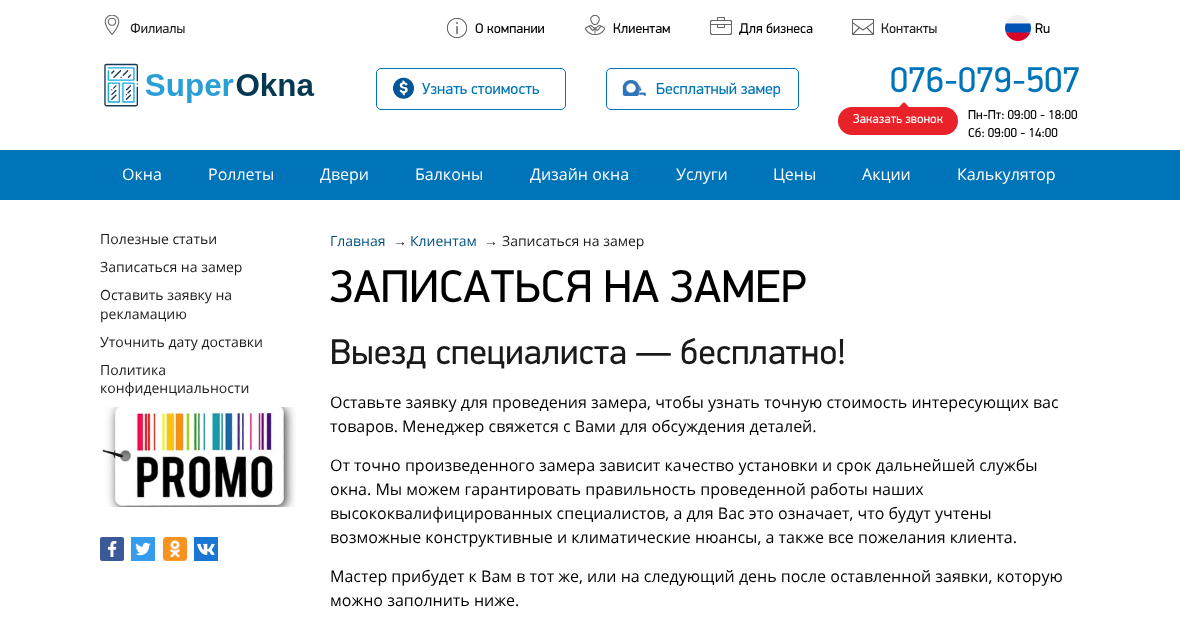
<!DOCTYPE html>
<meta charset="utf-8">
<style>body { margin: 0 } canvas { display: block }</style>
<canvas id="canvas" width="1180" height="617"></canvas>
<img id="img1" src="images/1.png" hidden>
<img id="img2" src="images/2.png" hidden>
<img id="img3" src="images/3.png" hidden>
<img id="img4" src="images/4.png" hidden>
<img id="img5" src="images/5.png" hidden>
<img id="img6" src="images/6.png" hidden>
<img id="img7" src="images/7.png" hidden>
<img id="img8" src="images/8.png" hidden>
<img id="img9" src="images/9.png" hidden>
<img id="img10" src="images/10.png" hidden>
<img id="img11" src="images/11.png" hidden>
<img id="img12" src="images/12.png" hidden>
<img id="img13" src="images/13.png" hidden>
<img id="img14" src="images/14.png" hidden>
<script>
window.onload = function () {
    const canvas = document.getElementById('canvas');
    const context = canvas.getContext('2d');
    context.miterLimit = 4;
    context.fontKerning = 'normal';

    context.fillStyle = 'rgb(255, 255, 255)';
    context.fillRect(0, 0, 1180, 617);
    context.drawImage(document.getElementById('img1'), 104, 15, 16, 21);
    context.drawImage(document.getElementById('img2'), 446, 18, 21, 20);
    context.drawImage(document.getElementById('img3'), 585, 15, 20, 20);
    context.drawImage(document.getElementById('img4'), 710, 17, 22, 18);
    context.drawImage(document.getElementById('img5'), 852, 19, 22, 16);
    context.drawImage(document.getElementById('img6'), 1005, 15, 26, 26);
    context.drawImage(document.getElementById('img7'), 104, 63, 211, 44);
    context.beginPath();
    context.roundRect(376.5, 68.5, 189, 41, 4.5);
    context.strokeStyle = 'rgb(0, 116, 184)';
    context.stroke();
    context.drawImage(document.getElementById('img8'), 393, 77, 21, 22);
    context.beginPath();
    context.roundRect(606.5, 68.5, 192, 41, 4.5);
    context.stroke();
    context.drawImage(document.getElementById('img9'), 622, 80, 24, 16);
    context.fillStyle = 'rgb(233, 34, 41)';
    context.beginPath();
    context.roundRect(838, 107, 120, 28, 14);
    context.fill();
    context.beginPath();
    context.moveTo(910, 108);
    context.lineTo(898, 108);
    context.lineTo(904, 102);
    context.closePath();
    context.fill();
    context.fillStyle = 'rgb(0, 116, 184)';
    context.fillRect(0, 150, 1180, 50);
    context.drawImage(document.getElementById('img10'), 102, 407, 194, 100);
    context.fillStyle = 'rgb(59, 89, 152)';
    context.beginPath();
    context.roundRect(100, 537, 24, 24, 2);
    context.fill();
    context.drawImage(document.getElementById('img11'), 108, 541, 9, 16);
    context.drawImage(document.getElementById('img12'), 131, 537, 24, 24);
    context.drawImage(document.getElementById('img13'), 163, 537, 24, 24);
    context.drawImage(document.getElementById('img14'), 194, 537, 24, 24);
    context.font = '14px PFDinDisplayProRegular';
    context.fillStyle = 'rgb(34, 34, 34)';
    context.fillText('Филиалы', 130, 33);
    context.fillStyle = 'rgb(0, 0, 0)';
    context.fillText('О компании', 475, 33);
    context.fillText('Клиентам', 613, 33);
    context.fillText('Для бизнеса', 739, 33);
    context.fillStyle = 'rgb(34, 34, 34)';
    context.fillText('Контакты', 881, 33);
    context.fillStyle = 'rgb(0, 0, 0)';
    context.fillText('Ru', 1035, 33);
    context.font = '16px PFDinDisplayProRegular';
    context.fillStyle = 'rgb(0, 116, 184)';
    context.fillText('Узнать стоимость', 422, 94);
    context.fillText('Бесплатный замер', 656, 94);
    context.font = '36px PFDinDisplayProRegular';
    context.fillText('076-079-507', 890, 92);
    context.font = '13px PFDinDisplayProRegular';
    context.fillStyle = 'rgb(255, 255, 255)';
    context.fillText('Заказать звонок', 853, 123);
    context.fillStyle = 'rgb(0, 0, 0)';
    context.fillText('Пн-Пт: 09:00 - 18:00', 968, 119);
    context.fillText('Сб: 09:00 - 14:00', 968, 137);
    context.font = '16px Open Sans';
    context.fillStyle = 'rgb(255, 255, 255)';
    context.fillText('Окна', 122, 180);
    context.fillText('Роллеты', 208, 180);
    context.fillText('Двери', 320, 180);
    context.fillText('Балконы', 415, 180);
    context.fillText('Дизайн окна', 530, 180);
    context.fillText('Услуги', 676, 180);
    context.fillText('Цены', 773, 180);
    context.fillText('Акции', 862, 180);
    context.fillText('Калькулятор', 957, 180);
    context.font = '14px Open Sans';
    context.fillStyle = 'rgb(26, 26, 26)';
    context.fillText('Полезные статьи', 100, 244);
    context.fillText('Записаться на замер', 100, 272);
    context.fillText('Оставить заявку на', 100, 300);
    context.fillText('рекламацию', 100, 319);
    context.fillText('Уточнить дату доставки', 100, 347);
    context.fillText('Политика', 100, 375);
    context.fillText('конфиденциальности', 100, 393);
    context.fillStyle = 'rgb(0, 82, 130)';
    context.fillText('Главная', 330, 246);
    context.font = '14px Liberation Serif';
    context.fillStyle = 'rgb(26, 26, 26)';
    context.fillText('→', 393, 246);
    context.font = '14px Open Sans';
    context.fillStyle = 'rgb(0, 82, 130)';
    context.fillText('Клиентам', 410, 246);
    context.font = '14px Liberation Serif';
    context.fillStyle = 'rgb(26, 26, 26)';
    context.fillText('→', 484, 246);
    context.font = '14px Open Sans';
    context.fillText('Записаться на замер', 502, 246);
    context.font = '46px PFDinDisplayProRegular';
    context.fillStyle = 'rgb(0, 0, 0)';
    context.fillText('ЗАПИСАТЬСЯ НА ЗАМЕР', 330, 302);
    context.font = '36px PFDinDisplayProRegular';
    context.fillStyle = 'rgb(26, 26, 26)';
    context.fillText('Выезд специалиста — бесплатно!', 330, 364);
    context.font = '16px Open Sans';
    context.fillStyle = 'rgb(0, 0, 0)';
    context.fillText('Оставьте заявку для проведения замера, чтобы узнать точную стоимость интересующих вас', 330, 408);
    context.fillText('товаров. Менеджер свяжется с Вами для обсуждения деталей.', 330, 432);
    context.fillText('От точно произведенного замера зависит качество установки и срок дальнейшей службы', 330, 471);
    context.fillText('окна. Мы можем гарантировать правильность проведенной работы наших', 330, 495);
    context.fillText('высококвалифицированных специалистов, а для Вас это означает, что будут учтены', 330, 519);
    context.fillText('возможные конструктивные и климатические нюансы, а также все пожелания клиента.', 330, 543);
    context.fillText('Мастер прибудет к Вам в тот же, или на следующий день после оставленной заявки, которую', 330, 582);
    context.fillText('можно заполнить ниже.', 330, 606);
};
</script>
